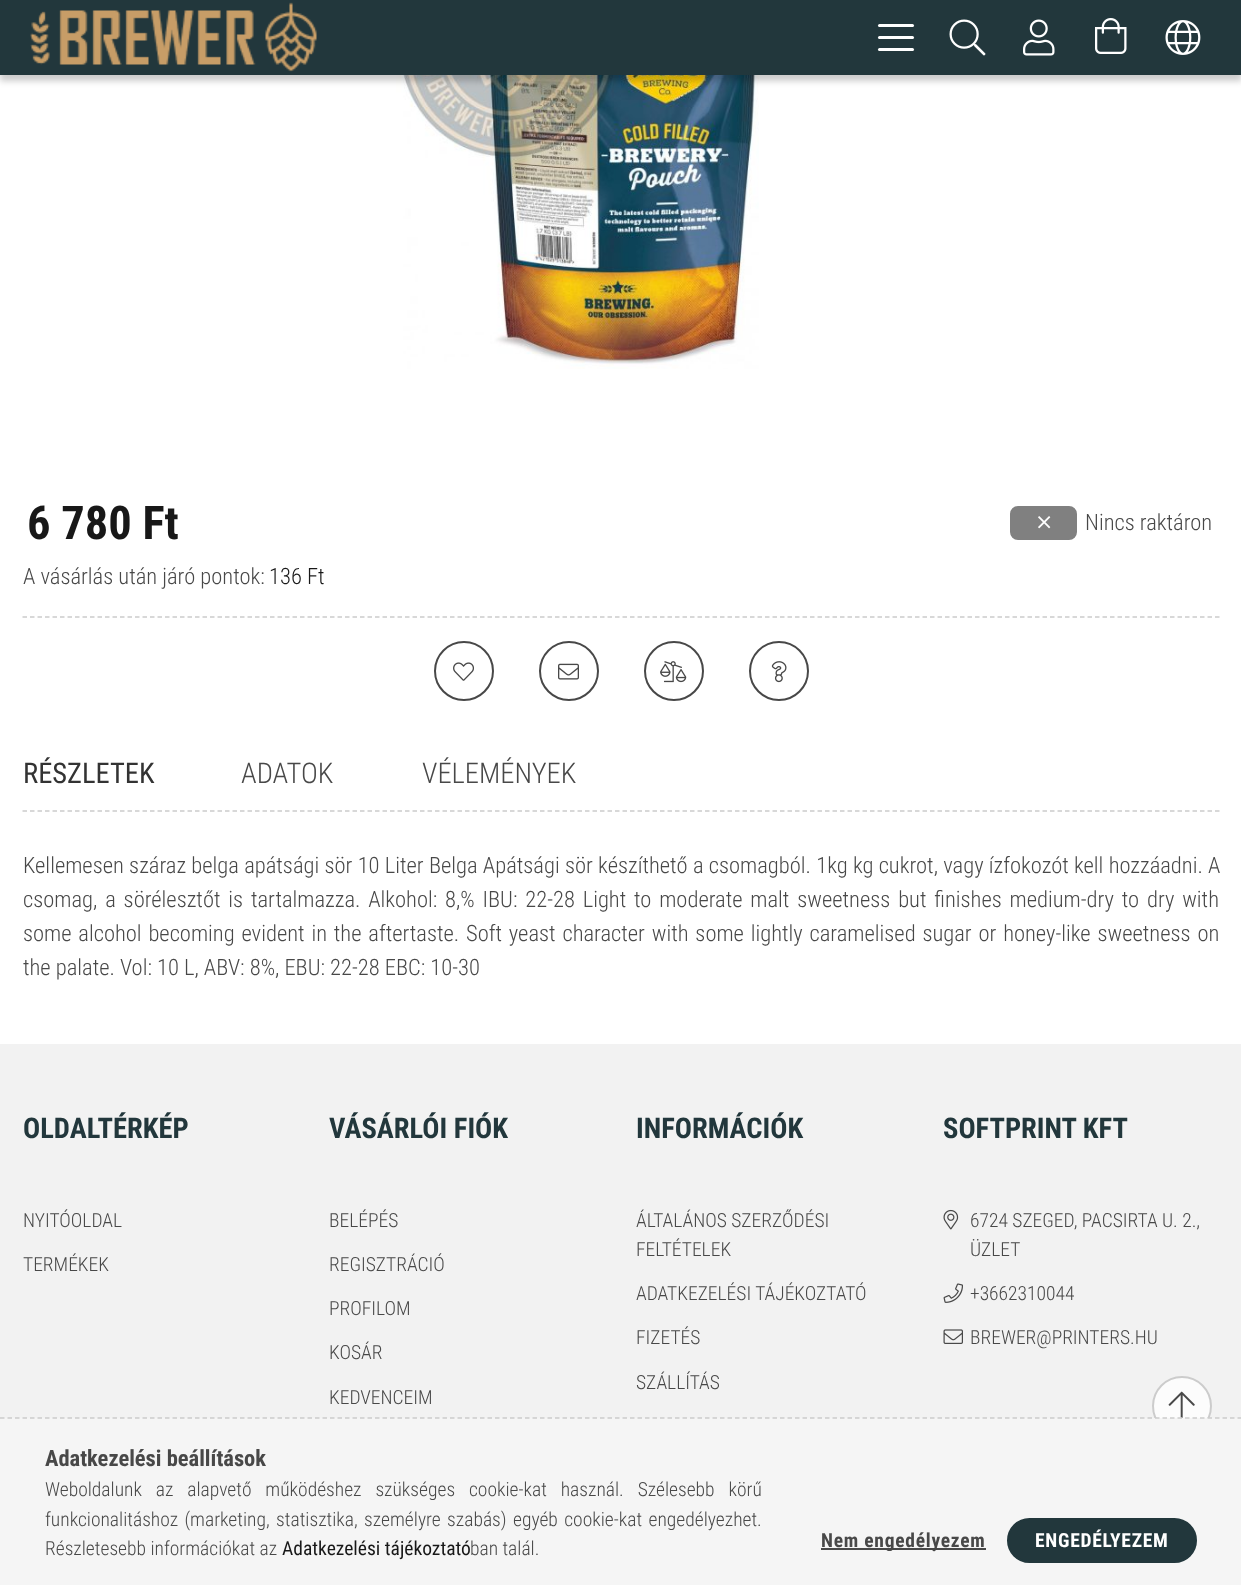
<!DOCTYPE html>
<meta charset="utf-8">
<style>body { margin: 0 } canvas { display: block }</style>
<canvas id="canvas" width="1241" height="1585"></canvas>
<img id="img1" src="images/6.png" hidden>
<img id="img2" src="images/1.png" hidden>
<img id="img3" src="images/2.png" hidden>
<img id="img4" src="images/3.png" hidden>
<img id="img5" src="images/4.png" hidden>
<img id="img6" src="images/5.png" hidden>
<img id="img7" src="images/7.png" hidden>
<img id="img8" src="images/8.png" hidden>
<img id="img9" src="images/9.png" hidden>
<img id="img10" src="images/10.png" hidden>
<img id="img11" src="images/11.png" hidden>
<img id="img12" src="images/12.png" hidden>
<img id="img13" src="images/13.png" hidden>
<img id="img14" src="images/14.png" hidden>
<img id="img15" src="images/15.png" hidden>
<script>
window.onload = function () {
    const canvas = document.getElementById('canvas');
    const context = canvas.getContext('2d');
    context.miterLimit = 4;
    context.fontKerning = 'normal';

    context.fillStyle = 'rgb(255, 255, 255)';
    context.fillRect(0, 0, 1241, 1585);
    context.drawImage(document.getElementById('img1'), 396, 75, 363, 294);
    context.fillStyle = 'rgba(0, 0, 0, 0.2)';
    context.filter = 'blur(3px)';
    context.beginPath();
    context.rect(0, 6, 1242, 75);
    context.fill();
    context.filter = 'none';
    context.fillStyle = 'rgb(34, 55, 60)';
    context.fillRect(0, 0, 1241, 75);
    context.drawImage(document.getElementById('img2'), 30, 2, 287, 70);
    context.fillStyle = 'rgb(255, 255, 255)';
    context.beginPath();
    context.roundRect(878, 24, 36, 3, 1.5);
    context.fill();
    context.beginPath();
    context.roundRect(878, 36, 36, 3, 1.5);
    context.fill();
    context.beginPath();
    context.roundRect(878, 48, 36, 3, 1.5);
    context.fill();
    context.drawImage(document.getElementById('img3'), 949, 19, 37, 37);
    context.drawImage(document.getElementById('img4'), 1023, 19, 32, 37);
    context.drawImage(document.getElementById('img5'), 1095, 18, 32, 36);
    context.drawImage(document.getElementById('img6'), 1165, 20, 36, 35);
    context.fillStyle = 'rgb(128, 128, 128)';
    context.beginPath();
    context.roundRect(1011, 507, 65, 32, 7);
    context.fill();
    context.strokeStyle = 'rgb(128, 128, 128)';
    context.lineWidth = 2;
    context.stroke();
    context.drawImage(document.getElementById('img7'), 1038, 516, 13, 13);
    context.beginPath();
    context.moveTo(22.5, 617);
    context.lineTo(1219.5, 617);
    context.strokeStyle = 'rgb(204, 204, 204)';
    context.lineWidth = 1.5;
    context.setLineDash([4.5, 3]);
    context.stroke();
    context.beginPath();
    context.arc(464, 671, 29, 0, 2 * Math.PI);
    context.strokeStyle = 'rgb(72, 72, 72)';
    context.lineWidth = 2;
    context.setLineDash([]);
    context.stroke();
    context.drawImage(document.getElementById('img8'), 453, 662, 21, 19);
    context.beginPath();
    context.arc(569, 671, 29, 0, 2 * Math.PI);
    context.stroke();
    context.drawImage(document.getElementById('img9'), 558, 663, 21, 17);
    context.beginPath();
    context.arc(674, 671, 29, 0, 2 * Math.PI);
    context.stroke();
    context.drawImage(document.getElementById('img10'), 660, 661, 27, 22);
    context.beginPath();
    context.arc(779, 671, 29, 0, 2 * Math.PI);
    context.stroke();
    context.drawImage(document.getElementById('img11'), 771, 661, 16, 22);
    context.beginPath();
    context.moveTo(22.5, 811);
    context.lineTo(1219.5, 811);
    context.strokeStyle = 'rgb(204, 204, 204)';
    context.lineWidth = 1.5;
    context.setLineDash([4.5, 3]);
    context.stroke();
    context.fillStyle = 'rgb(242, 242, 242)';
    context.fillRect(0, 1044, 1241, 374);
    context.drawImage(document.getElementById('img12'), 943, 1209, 16, 21);
    context.drawImage(document.getElementById('img13'), 943, 1283, 20, 20);
    context.drawImage(document.getElementById('img14'), 943, 1329, 20, 15);
    context.fillStyle = 'rgb(252, 252, 252)';
    context.beginPath();
    context.arc(1182, 1406, 29, 0, 2 * Math.PI);
    context.fill();
    context.lineWidth = 2;
    context.setLineDash([]);
    context.stroke();
    context.drawImage(document.getElementById('img15'), 1168, 1391, 27, 27);
    context.fillStyle = 'rgb(245, 245, 245)';
    context.fillRect(0, 1418, 1241, 167);
    context.beginPath();
    context.moveTo(0, 1418);
    context.lineTo(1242, 1418);
    context.lineWidth = 1.5;
    context.setLineDash([4.5, 3]);
    context.stroke();
    context.fillStyle = 'rgb(72, 72, 72)';
    context.fillRect(821, 1548, 165, 2);
    context.fillStyle = 'rgb(34, 55, 60)';
    context.beginPath();
    context.roundRect(1008, 1519, 188, 43, 21.5);
    context.fill();
    context.strokeStyle = 'rgb(34, 55, 60)';
    context.lineWidth = 2;
    context.setLineDash([]);
    context.stroke();
    context.font = 'bold 46.5px Roboto Condensed';
    context.fillStyle = 'rgb(24, 24, 24)';
    context.fillText('6 780 Ft', 27, 539);
    context.font = '300 22.5px Roboto Condensed';
    context.fillStyle = 'rgb(72, 72, 72)';
    context.fillText('Nincs raktáron', 1085, 530);
    context.fillText('A vásárlás után járó pontok:', 23, 584);
    context.fillStyle = 'rgb(24, 24, 24)';
    context.fillText('136 Ft', 269, 584);
    context.font = '28.5px Roboto Condensed';
    context.fillStyle = 'rgb(51, 51, 51)';
    context.fillText('RÉSZLETEK', 23, 783);
    context.font = '300 28.5px Roboto Condensed';
    context.fillStyle = 'rgb(72, 72, 72)';
    context.fillText('ADATOK', 241, 783);
    context.fillText('VÉLEMÉNYEK', 422, 783);
    context.wordSpacing = '0.2px';
    context.font = '300 22.5px Roboto Condensed';
    context.fillText('Kellemesen száraz belga apátsági sör 10 Liter Belga Apátsági sör készíthető a csomagból. 1kg kg cukrot, vagy ízfokozót kell hozzáadni. A', 23, 873);
    context.wordSpacing = '2.75px';
    context.fillText('csomag, a sörélesztőt is tartalmazza. Alkohol: 8,% IBU: 22-28 Light to moderate malt sweetness but finishes medium-dry to dry with', 23, 907);
    context.wordSpacing = '1.75px';
    context.fillText('some alcohol becoming evident in the aftertaste. Soft yeast character with some lightly caramelised sugar or honey-like sweetness on', 23, 941);
    context.wordSpacing = '0px';
    context.fillText('the palate. Vol: 10 L, ABV: 8%, EBU: 22-28 EBC: 10-30', 23, 975);
    context.font = 'bold 28.5px Roboto Condensed';
    context.fillStyle = 'rgb(34, 55, 60)';
    context.fillText('OLDALTÉRKÉP', 23, 1138);
    context.font = '300 19.5px Roboto Condensed';
    context.fillStyle = 'rgb(72, 72, 72)';
    context.fillText('NYITÓOLDAL', 23, 1227);
    context.fillText('TERMÉKEK', 23, 1271);
    context.font = 'bold 28.5px Roboto Condensed';
    context.fillStyle = 'rgb(34, 55, 60)';
    context.fillText('VÁSÁRLÓI FIÓK', 329, 1138);
    context.font = '300 19.5px Roboto Condensed';
    context.fillStyle = 'rgb(72, 72, 72)';
    context.fillText('BELÉPÉS', 329, 1227);
    context.fillText('REGISZTRÁCIÓ', 329, 1271);
    context.fillText('PROFILOM', 329, 1315);
    context.fillText('KOSÁR', 329, 1359);
    context.fillText('KEDVENCEIM', 329, 1404);
    context.font = 'bold 28.5px Roboto Condensed';
    context.fillStyle = 'rgb(34, 55, 60)';
    context.fillText('INFORMÁCIÓK', 636, 1138);
    context.font = '300 19.5px Roboto Condensed';
    context.fillStyle = 'rgb(72, 72, 72)';
    context.fillText('ÁLTALÁNOS SZERZŐDÉSI', 636, 1227);
    context.fillText('FELTÉTELEK', 636, 1256);
    context.fillText('ADATKEZELÉSI TÁJÉKOZTATÓ', 636, 1300);
    context.fillText('FIZETÉS', 636, 1344);
    context.fillText('SZÁLLÍTÁS', 636, 1389);
    context.font = 'bold 28.5px Roboto Condensed';
    context.fillStyle = 'rgb(34, 55, 60)';
    context.fillText('SOFTPRINT KFT', 943, 1138);
    context.font = '300 19.5px Roboto Condensed';
    context.fillStyle = 'rgb(72, 72, 72)';
    context.fillText('6724 SZEGED, PACSIRTA U. 2.,', 970, 1227);
    context.fillText('ÜZLET', 970, 1256);
    context.fillText('+3662310044', 970, 1300);
    context.fillText('BREWER@PRINTERS.HU', 970, 1344);
    context.font = 'bold 22.5px Roboto Condensed';
    context.fillText('Adatkezelési beállítások', 45, 1466);
    context.wordSpacing = '9.5px';
    context.font = '300 19.5px Roboto Condensed';
    context.fillText('Weboldalunk az alapvető működéshez szükséges cookie-kat használ. Szélesebb körű', 45, 1496);
    context.wordSpacing = '2px';
    context.fillText('funkcionalitáshoz (marketing, statisztika, személyre szabás) egyéb cookie-kat engedélyezhet.', 45, 1526);
    context.wordSpacing = '0px';
    context.fillText('Részletesebb információkat az', 45, 1555);
    context.font = '19.5px Roboto Condensed';
    context.fillStyle = 'rgb(24, 24, 24)';
    context.fillText('Adatkezelési tájékoztató', 282, 1555);
    context.font = '300 19.5px Roboto Condensed';
    context.fillStyle = 'rgb(72, 72, 72)';
    context.fillText('ban talál.', 470, 1555);
    context.letterSpacing = '0.75px';
    context.font = 'bold 19.5px Roboto Condensed';
    context.fillText('Nem engedélyezem', 821, 1547);
    context.fillStyle = 'rgb(255, 255, 255)';
    context.fillText('ENGEDÉLYEZEM', 1035, 1547);
};
</script>
